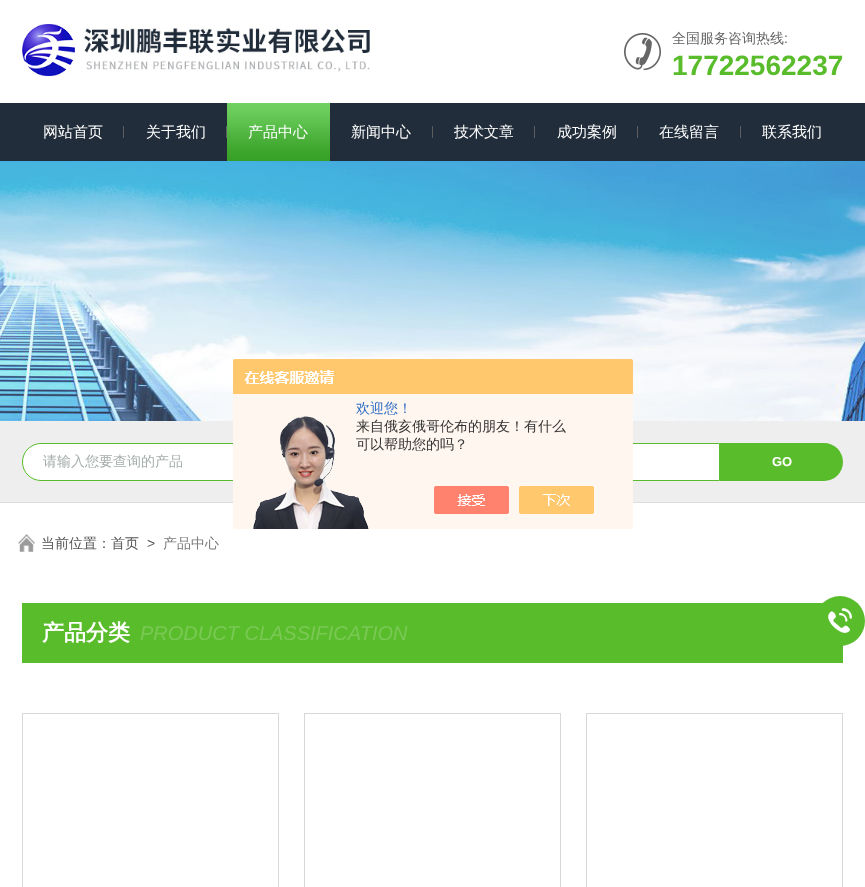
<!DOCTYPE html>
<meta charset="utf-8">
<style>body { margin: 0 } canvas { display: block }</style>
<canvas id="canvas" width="865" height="887"></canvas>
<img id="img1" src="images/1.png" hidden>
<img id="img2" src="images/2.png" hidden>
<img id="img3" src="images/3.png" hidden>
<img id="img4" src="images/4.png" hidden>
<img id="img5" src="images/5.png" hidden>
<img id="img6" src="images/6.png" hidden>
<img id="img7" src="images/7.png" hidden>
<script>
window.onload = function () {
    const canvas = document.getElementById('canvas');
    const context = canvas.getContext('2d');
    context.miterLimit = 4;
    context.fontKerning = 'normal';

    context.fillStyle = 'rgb(255, 255, 255)';
    context.fillRect(0, 0, 865, 887);
    context.drawImage(document.getElementById('img1'), 22, 24, 348, 53);
    context.drawImage(document.getElementById('img2'), 624, 33, 37, 37);
    context.fillStyle = 'rgb(33, 45, 58)';
    context.fillRect(0, 103, 865, 58);
    context.fillStyle = 'rgb(93, 93, 95)';
    context.fillRect(123, 126, 1, 12);
    context.fillRect(226, 126, 1, 12);
    context.drawImage(document.getElementById('img3'), 227, 103, 103, 58);
    context.fillRect(432, 126, 1, 12);
    context.fillRect(534, 126, 1, 12);
    context.fillRect(637, 126, 1, 12);
    context.fillRect(740, 126, 1, 12);
    context.drawImage(document.getElementById('img4'), 0, 161, 865, 260);
    context.fillStyle = 'rgb(238, 238, 238)';
    context.fillRect(0, 421, 865, 81);
    context.fillStyle = 'rgb(222, 222, 222)';
    context.fillRect(0, 502, 865, 1);
    context.fillStyle = 'rgb(255, 255, 255)';
    context.beginPath();
    context.roundRect(22.5, 443.5, 697, 37, [18.5, 0, 0, 18.5]);
    context.fill();
    context.strokeStyle = 'rgb(89, 188, 43)';
    context.stroke();
    context.drawImage(document.getElementById('img5'), 233, 359, 400, 170);
    context.fillStyle = 'rgb(89, 188, 43)';
    context.beginPath();
    context.roundRect(720, 443, 123, 38, [0, 19, 19, 0]);
    context.fill();
    context.drawImage(document.getElementById('img6'), 18, 534, 18, 18);
    context.fillRect(22, 603, 821, 60);
    context.strokeStyle = 'rgb(216, 216, 216)';
    context.strokeRect(22.5, 713.5, 256, 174);
    context.strokeRect(304.5, 713.5, 256, 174);
    context.strokeRect(586.5, 713.5, 256, 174);
    context.beginPath();
    context.arc(840, 621, 25, 0, 2 * Math.PI);
    context.fill();
    context.drawImage(document.getElementById('img7'), 828, 608, 24, 25);
    context.font = '500 14px WenQuanYi Zen Hei';
    context.fillStyle = 'rgb(102, 102, 102)';
    context.fillText('全国服务咨询热线', 672, 43);
    context.font = '14px Liberation Sans';
    context.fillText(':', 784, 43);
    context.font = 'bold 28px Liberation Sans';
    context.fillStyle = 'rgb(89, 188, 43)';
    context.fillText('17722562237', 672, 75);
    context.font = '500 15px WenQuanYi Zen Hei';
    context.fillStyle = 'rgb(255, 255, 255)';
    context.fillText('网站首页', 43, 137);
    context.fillText('关于我们', 146, 137);
    context.fillText('产品中心', 248, 137);
    context.fillText('新闻中心', 351, 137);
    context.fillText('技术文章', 454, 137);
    context.fillText('成功案例', 557, 137);
    context.fillText('在线留言', 659, 137);
    context.fillText('联系我们', 762, 137);
    context.font = '500 14px WenQuanYi Zen Hei';
    context.fillStyle = 'rgb(46, 110, 198)';
    context.fillText('欢迎您！', 356, 413);
    context.fillStyle = 'rgb(51, 51, 51)';
    context.fillText('来自俄亥俄哥伦布的朋友！有什么', 356, 431);
    context.fillText('可以帮助您的吗？', 356, 449);
    context.fillStyle = 'rgb(164, 173, 169)';
    context.fillText('请输入您要查询的产品', 43, 466);
    context.font = 'bold 13px Liberation Sans';
    context.fillStyle = 'rgb(255, 255, 255)';
    context.fillText('GO', 772, 466);
    context.font = '500 14px WenQuanYi Zen Hei';
    context.fillStyle = 'rgb(84, 84, 84)';
    context.fillText('当前位置：首页', 41, 548);
    context.font = '14px Liberation Sans';
    context.fillText('>', 147, 548);
    context.font = '500 14px WenQuanYi Zen Hei';
    context.fillStyle = 'rgb(121, 121, 121)';
    context.fillText('产品中心', 163, 548);
    context.font = 'bold 22px WenQuanYi Zen Hei';
    context.fillStyle = 'rgb(255, 255, 255)';
    context.fillText('产品分类', 42, 640);
    context.font = 'italic 20px Liberation Sans';
    context.fillStyle = 'rgb(122, 201, 85)';
    context.fillText('PRODUCT CLASSIFICATION', 140, 640);
};
</script>
